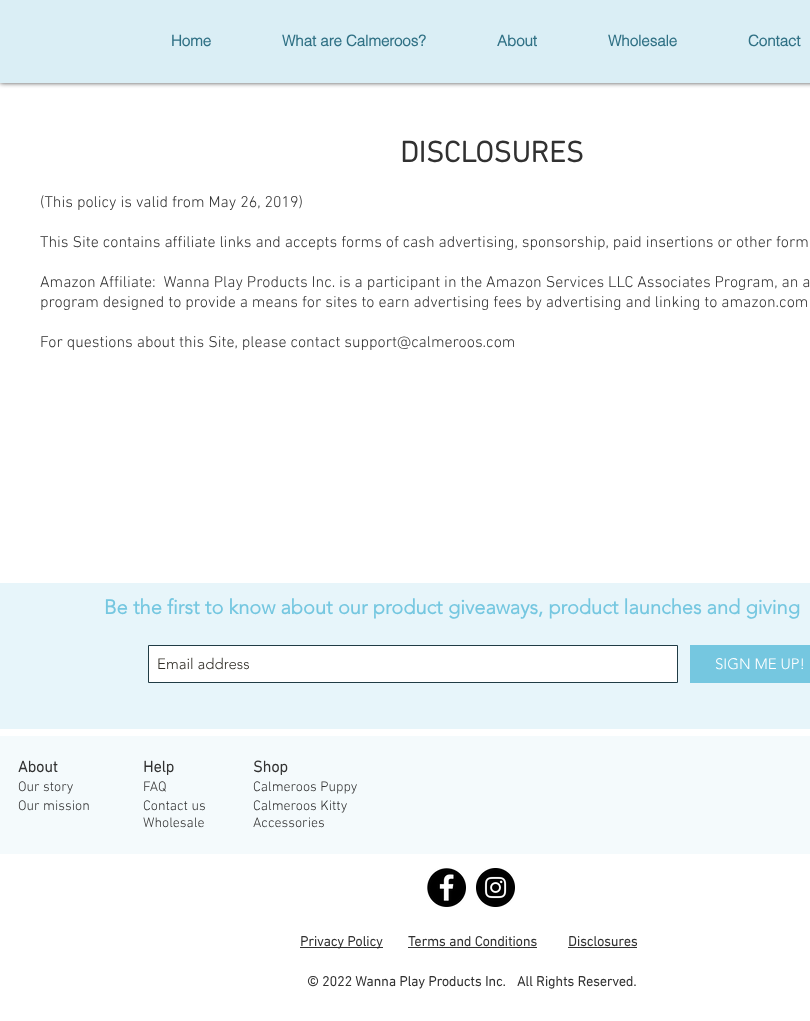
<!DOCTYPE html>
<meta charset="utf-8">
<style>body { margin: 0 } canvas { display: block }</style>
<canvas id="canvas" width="810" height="1021"></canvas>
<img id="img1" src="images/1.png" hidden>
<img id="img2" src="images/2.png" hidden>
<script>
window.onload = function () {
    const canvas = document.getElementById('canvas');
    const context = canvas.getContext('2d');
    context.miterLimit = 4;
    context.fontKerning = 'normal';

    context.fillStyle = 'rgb(255, 255, 255)';
    context.fillRect(0, 0, 810, 1021);
    context.fillStyle = 'rgba(0, 0, 0, 0.7)';
    context.filter = 'blur(2.5px)';
    context.beginPath();
    context.rect(0, 0, 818, 83);
    context.fill();
    context.filter = 'none';
    context.fillStyle = 'rgb(218, 238, 245)';
    context.fillRect(0, 0, 810, 83);
    context.fillStyle = 'rgb(231, 245, 250)';
    context.fillRect(0, 583, 810, 146);
    context.fillStyle = 'rgb(255, 255, 255)';
    context.beginPath();
    context.rect(148.5, 645.5, 529, 37);
    context.fill();
    context.strokeStyle = 'rgb(32, 60, 69)';
    context.stroke();
    context.fillStyle = 'rgb(117, 199, 224)';
    context.fillRect(690, 645, 120, 38);
    context.fillStyle = 'rgb(244, 250, 252)';
    context.fillRect(0, 736, 810, 118);
    context.drawImage(document.getElementById('img1'), 427, 868, 39, 39);
    context.drawImage(document.getElementById('img2'), 476, 868, 39, 39);
    context.fillStyle = 'rgb(49, 49, 49)';
    context.fillRect(300, 947, 83, 1);
    context.fillRect(408, 947, 129, 1);
    context.fillRect(568, 947, 69, 1);
    context.font = 'bold 15px helvetica';
    context.fillStyle = 'rgb(48, 113, 133)';
    context.fillText('Home', 171, 46);
    context.fillText('What are Calmeroos?', 282, 46);
    context.fillText('About', 497, 46);
    context.fillText('Wholesale', 608, 46);
    context.fillText('Contact', 748, 46);
    context.font = 'bold 30px "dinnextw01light"';
    context.fillStyle = 'rgb(49, 49, 49)';
    context.fillText('DISCLOSURES', 400, 162);
    context.font = '300 16px "dinnextw01light"';
    context.fillText('(This policy is valid from May 26, 2019)', 40, 207);
    context.fillText('This Site contains affiliate links and accepts forms of cash advertising, sponsorship, paid insertions or other form', 40, 247);
    context.fillText('Amazon Affiliate:  Wanna Play Products Inc. is a participant in the Amazon Services LLC Associates Program, an a', 40, 287);
    context.fillText('program designed to provide a means for sites to earn advertising fees by advertising and linking to amazon.com', 40, 307);
    context.fillText('For questions about this Site, please contact support@calmeroos.com', 40, 347);
    context.font = 'bold 20px "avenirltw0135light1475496"';
    context.fillStyle = 'rgb(117, 199, 224)';
    context.fillText('Be the first to know about our product giveaways, product launches and giving', 104, 614);
    context.font = '300 15px "avenirltw0135light1475496"';
    context.fillStyle = 'rgb(51, 48, 41)';
    context.fillText('Email address', 157, 669);
    context.fillStyle = 'rgb(255, 255, 255)';
    context.fillText('SIGN ME UP!', 715, 669);
    context.font = 'bold 16px "dinnextw01light"';
    context.fillStyle = 'rgb(49, 49, 49)';
    context.fillText('About', 18, 772);
    context.fillText('Help', 143, 772);
    context.fillText('Shop', 253, 772);
    context.font = '300 14px "dinnextw01light"';
    context.fillText('Our story', 18, 791);
    context.fillText('FAQ', 143, 791);
    context.fillText('Calmeroos Puppy', 253, 791);
    context.fillText('Our mission', 18, 810);
    context.fillText('Contact us', 143, 810);
    context.fillText('Calmeroos Kitty', 253, 810);
    context.fillText('Wholesale', 143, 827);
    context.fillText('Accessories', 253, 827);
    context.font = 'bold 14px "dinnextw01light"';
    context.fillText('Privacy Policy', 300, 946);
    context.fillText('Terms and Conditions', 408, 946);
    context.fillText('Disclosures', 568, 946);
    context.fillText('© 2022 Wanna Play Products Inc.', 307, 986);
    context.fillText('All Rights Reserved.', 517, 986);
};
</script>
